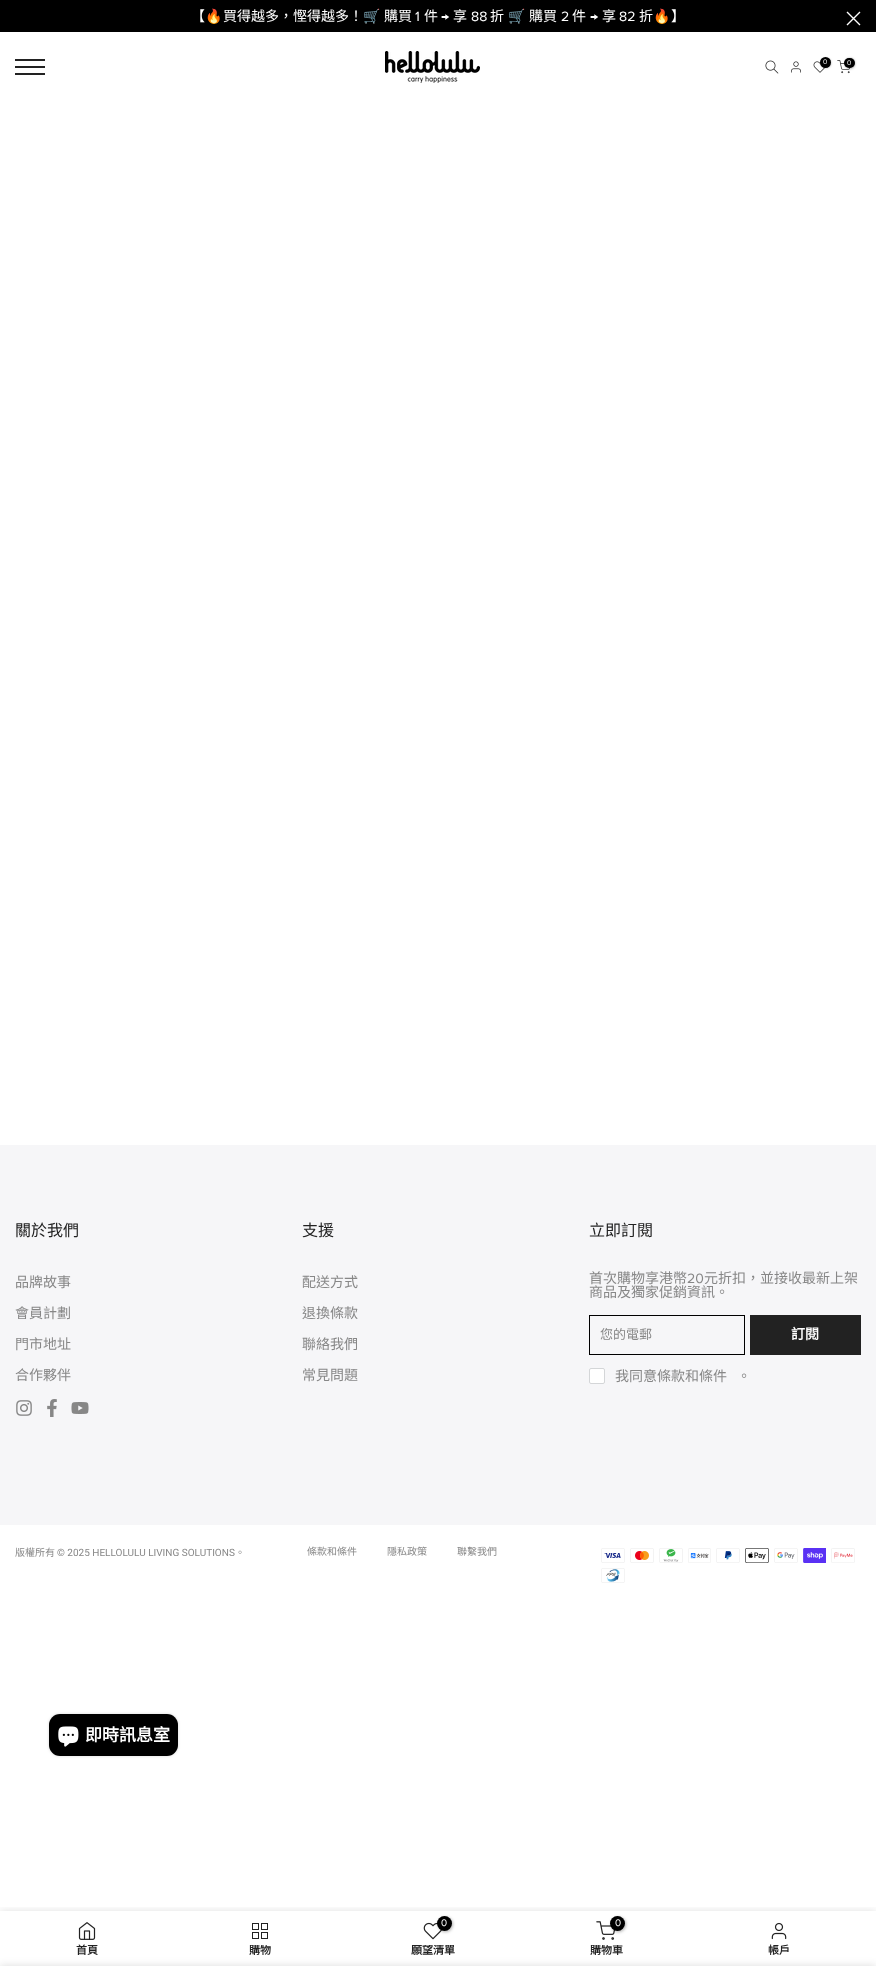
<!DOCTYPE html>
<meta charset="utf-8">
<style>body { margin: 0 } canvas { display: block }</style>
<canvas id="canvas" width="876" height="1966"></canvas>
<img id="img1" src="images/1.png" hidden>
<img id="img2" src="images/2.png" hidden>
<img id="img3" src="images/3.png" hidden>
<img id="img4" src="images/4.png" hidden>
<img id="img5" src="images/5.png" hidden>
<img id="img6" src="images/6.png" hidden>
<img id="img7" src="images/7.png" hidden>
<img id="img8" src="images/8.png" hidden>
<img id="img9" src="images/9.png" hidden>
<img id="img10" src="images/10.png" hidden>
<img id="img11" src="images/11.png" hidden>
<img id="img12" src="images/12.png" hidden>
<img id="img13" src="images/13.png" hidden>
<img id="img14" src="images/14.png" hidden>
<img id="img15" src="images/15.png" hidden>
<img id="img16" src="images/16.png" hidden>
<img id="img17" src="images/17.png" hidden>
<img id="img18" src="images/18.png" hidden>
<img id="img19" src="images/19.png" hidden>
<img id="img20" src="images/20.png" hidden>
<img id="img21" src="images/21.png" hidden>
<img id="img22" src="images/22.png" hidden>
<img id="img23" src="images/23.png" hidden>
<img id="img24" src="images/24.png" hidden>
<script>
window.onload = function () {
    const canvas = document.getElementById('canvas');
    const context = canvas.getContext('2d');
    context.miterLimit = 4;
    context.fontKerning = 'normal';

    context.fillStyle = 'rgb(255, 255, 255)';
    context.fillRect(0, 0, 876, 1966);
    context.fillStyle = 'rgb(0, 0, 0)';
    context.fillRect(0, 0, 876, 32);
    context.beginPath();
    context.moveTo(860, 12);
    context.lineTo(847, 25);
    context.moveTo(860, 25);
    context.lineTo(847, 12);
    context.strokeStyle = 'rgb(255, 255, 255)';
    context.lineWidth = 1.4;
    context.stroke();
    context.fillStyle = 'rgb(34, 34, 34)';
    context.fillRect(15, 59, 30, 2);
    context.fillRect(15, 66, 30, 2);
    context.fillRect(15, 73, 30, 2);
    context.drawImage(document.getElementById('img1'), 385, 51, 95, 32);
    context.drawImage(document.getElementById('img2'), 765, 60, 14, 14);
    context.drawImage(document.getElementById('img3'), 791, 61, 10, 12);
    context.drawImage(document.getElementById('img4'), 813, 61, 13, 12);
    context.fillStyle = 'rgba(0, 0, 0, 0.3)';
    context.filter = 'blur(1px)';
    context.beginPath();
    context.roundRect(821, 58, 10, 10, 5);
    context.fill();
    context.filter = 'none';
    context.fillStyle = 'rgb(0, 0, 0)';
    context.beginPath();
    context.arc(825.5, 62.5, 5.5, 0, 2 * Math.PI);
    context.fill();
    context.drawImage(document.getElementById('img5'), 837, 60, 14, 14);
    context.fillStyle = 'rgba(0, 0, 0, 0.3)';
    context.filter = 'blur(1px)';
    context.beginPath();
    context.roundRect(845, 58, 10, 11, 5);
    context.fill();
    context.filter = 'none';
    context.fillStyle = 'rgb(0, 0, 0)';
    context.beginPath();
    context.roundRect(844, 58, 11, 10, 5);
    context.fill();
    context.fillStyle = 'rgb(246, 246, 248)';
    context.fillRect(0, 1145, 876, 380);
    context.drawImage(document.getElementById('img6'), 16, 1400, 16, 16);
    context.drawImage(document.getElementById('img7'), 47, 1399, 10, 18);
    context.drawImage(document.getElementById('img8'), 71, 1402, 18, 12);
    context.strokeStyle = 'rgb(0, 0, 0)';
    context.lineWidth = 1;
    context.strokeRect(589.5, 1315.5, 155, 39);
    context.fillStyle = 'rgb(34, 34, 34)';
    context.fillRect(750, 1315, 111, 40);
    context.fillStyle = 'rgb(255, 255, 255)';
    context.beginPath();
    context.roundRect(589.5, 1368.5, 15, 15, 1.5);
    context.fill();
    context.strokeStyle = 'rgb(212, 214, 216)';
    context.stroke();
    context.drawImage(document.getElementById('img9'), 601, 1548, 24, 15);
    context.drawImage(document.getElementById('img10'), 630, 1548, 24, 15);
    context.drawImage(document.getElementById('img11'), 659, 1548, 24, 15);
    context.drawImage(document.getElementById('img12'), 688, 1548, 23, 15);
    context.drawImage(document.getElementById('img13'), 716, 1548, 24, 15);
    context.drawImage(document.getElementById('img14'), 745, 1548, 24, 15);
    context.drawImage(document.getElementById('img15'), 774, 1548, 24, 15);
    context.drawImage(document.getElementById('img16'), 803, 1548, 23, 15);
    context.drawImage(document.getElementById('img17'), 831, 1548, 24, 15);
    context.drawImage(document.getElementById('img18'), 601, 1568, 24, 15);
    context.fillStyle = 'rgba(0, 0, 0, 0.15)';
    context.filter = 'blur(1.5px)';
    context.beginPath();
    context.roundRect(49, 1714, 129, 42, 11);
    context.fill();
    context.filter = 'none';
    context.fillStyle = 'rgb(0, 0, 0)';
    context.beginPath();
    context.roundRect(49, 1714, 129, 42, 11);
    context.fill();
    context.drawImage(document.getElementById('img19'), 58, 1726, 21, 21);
    context.save();
    context.beginPath();
    context.rect(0, 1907, 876, 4);
    context.clip();
    context.fillStyle = 'rgba(0, 0, 0, 0.12)';
    context.filter = 'blur(4.5px)';
    context.beginPath();
    context.rect(0, 1911, 876, 55);
    context.fill();
    context.filter = 'none';
    context.restore();
    context.drawImage(document.getElementById('img20'), 78, 1922, 18, 18);
    context.drawImage(document.getElementById('img21'), 252, 1923, 16, 16);
    context.drawImage(document.getElementById('img22'), 423, 1922, 19, 18);
    context.fillStyle = 'rgba(0, 0, 0, 0.3)';
    context.filter = 'blur(1.5px)';
    context.beginPath();
    context.roundRect(438, 1917, 15, 15, 7.5);
    context.fill();
    context.filter = 'none';
    context.fillStyle = 'rgb(0, 0, 0)';
    context.beginPath();
    context.arc(444.5, 1923.5, 7.5, 0, 2 * Math.PI);
    context.fill();
    context.drawImage(document.getElementById('img23'), 596, 1921, 19, 19);
    context.fillStyle = 'rgba(0, 0, 0, 0.3)';
    context.filter = 'blur(1.5px)';
    context.beginPath();
    context.roundRect(611, 1917, 15, 15, 7.5);
    context.fill();
    context.filter = 'none';
    context.fillStyle = 'rgb(0, 0, 0)';
    context.beginPath();
    context.arc(617.5, 1923.5, 7.5, 0, 2 * Math.PI);
    context.fill();
    context.drawImage(document.getElementById('img24'), 771, 1922, 16, 18);
    context.fillStyle = 'rgba(0, 0, 0, 0.14)';
    context.filter = 'blur(4.5px)';
    context.beginPath();
    context.rect(0, 1966, 876, 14);
    context.fill();
    context.filter = 'none';
    context.font = '14px Noto Sans CJK TC';
    context.fillStyle = 'rgb(255, 255, 255)';
    context.fillText('【', 191, 21);
    context.font = '14px Noto Color Emoji';
    context.fillText('🔥', 205, 21);
    context.font = '14px Noto Sans CJK TC';
    context.fillText('買得越多，慳得越多！', 223, 21);
    context.font = '14px Noto Color Emoji';
    context.fillText('🛒', 363, 21);
    context.font = '14px Noto Sans CJK TC';
    context.fillText('購買', 384, 21);
    context.font = '14px Proxima Nova';
    context.fillText('1', 415, 21);
    context.font = '14px Noto Sans CJK TC';
    context.fillText('件', 424, 21);
    context.font = '14px Proxima Nova';
    context.fillText('→', 441, 21);
    context.font = '14px Noto Sans CJK TC';
    context.fillText('享', 453, 21);
    context.font = '14px Proxima Nova';
    context.fillText('88', 471, 21);
    context.font = '14px Noto Sans CJK TC';
    context.fillText('折', 490, 21);
    context.font = '14px Noto Color Emoji';
    context.fillText('🛒', 508, 21);
    context.font = '14px Noto Sans CJK TC';
    context.fillText('購買', 529, 21);
    context.font = '14px Proxima Nova';
    context.fillText('2', 561, 21);
    context.font = '14px Noto Sans CJK TC';
    context.fillText('件', 572, 21);
    context.font = '14px Proxima Nova';
    context.fillText('→', 590, 21);
    context.font = '14px Noto Sans CJK TC';
    context.fillText('享', 602, 21);
    context.font = '14px Proxima Nova';
    context.fillText('82', 619, 21);
    context.font = '14px Noto Sans CJK TC';
    context.fillText('折', 639, 21);
    context.font = '14px Noto Color Emoji';
    context.fillText('🔥', 653, 21);
    context.font = '14px Noto Sans CJK TC';
    context.fillText('】', 671, 21);
    context.font = '7px Proxima Nova';
    context.fillText('0', 823, 64);
    context.fillText('0', 847, 65);
    context.font = '16px Noto Sans CJK TC';
    context.fillStyle = 'rgb(34, 34, 34)';
    context.fillText('關於我們', 15, 1236);
    context.font = '14px Noto Sans CJK TC';
    context.fillStyle = 'rgb(135, 135, 135)';
    context.fillText('品牌故事', 15, 1287);
    context.fillText('會員計劃', 15, 1318);
    context.fillText('門市地址', 15, 1349);
    context.fillText('合作夥伴', 15, 1380);
    context.font = '16px Noto Sans CJK TC';
    context.fillStyle = 'rgb(34, 34, 34)';
    context.fillText('支援', 302, 1236);
    context.font = '14px Noto Sans CJK TC';
    context.fillStyle = 'rgb(135, 135, 135)';
    context.fillText('配送方式', 302, 1287);
    context.fillText('退換條款', 302, 1318);
    context.fillText('聯絡我們', 302, 1349);
    context.fillText('常見問題', 302, 1380);
    context.font = '16px Noto Sans CJK TC';
    context.fillStyle = 'rgb(34, 34, 34)';
    context.fillText('立即訂閱', 589, 1236);
    context.font = '14px Noto Sans CJK TC';
    context.fillStyle = 'rgb(135, 135, 135)';
    context.fillText('首次購物享港幣', 589, 1283);
    context.font = '14px Proxima Nova';
    context.fillText('20', 687, 1283);
    context.font = '14px Noto Sans CJK TC';
    context.fillText('元折扣，並接收最新上架', 704, 1283);
    context.fillText('商品及獨家促銷資訊。', 589, 1297);
    context.font = '13px Noto Sans CJK TC';
    context.fillText('您的電郵', 600, 1339);
    context.font = 'bold 14px Noto Sans CJK TC';
    context.fillStyle = 'rgb(255, 255, 255)';
    context.fillText('訂閱', 791, 1339);
    context.font = '14px Noto Sans CJK TC';
    context.fillStyle = 'rgb(135, 135, 135)';
    context.fillText('我同意條款和條件', 615, 1381);
    context.fillText('。', 737, 1381);
    context.font = '10px Noto Sans CJK TC';
    context.fillText('版權所有', 15, 1556);
    context.font = '10px Roboto';
    context.fillText('© 2025 HELLOLULU LIVING SOLUTIONS', 57, 1556);
    context.font = '10px Noto Sans CJK TC';
    context.fillText('。', 235, 1556);
    context.fillText('條款和條件', 307, 1555);
    context.fillText('隱私政策', 387, 1555);
    context.fillText('聯繫我們', 457, 1555);
    context.font = 'bold 17px Noto Sans CJK TC';
    context.fillStyle = 'rgb(255, 255, 255)';
    context.fillText('即時訊息室', 85, 1741);
    context.font = 'bold 11px Noto Sans CJK TC';
    context.fillStyle = 'rgb(34, 34, 34)';
    context.fillText('首頁', 76, 1954);
    context.save();
    context.beginPath();
    context.rect(188, 1945, 143, 11);
    context.clip();
    context.fillText('購物', 249, 1954);
    context.restore();
    context.font = '10px Proxima Nova';
    context.fillStyle = 'rgb(255, 255, 255)';
    context.fillText('0', 441, 1926);
    context.save();
    context.beginPath();
    context.rect(361, 1945, 144, 11);
    context.clip();
    context.font = 'bold 11px Noto Sans CJK TC';
    context.fillStyle = 'rgb(34, 34, 34)';
    context.fillText('願望清單', 411, 1954);
    context.restore();
    context.fillText('0', 615, 1926);
    context.save();
    context.beginPath();
    context.rect(535, 1945, 143, 11);
    context.clip();
    context.font = 'bold 11px Noto Sans CJK TC';
    context.fillStyle = 'rgb(34, 34, 34)';
    context.fillText('購物車', 590, 1954);
    context.restore();
    context.font = 'bold 11px Noto Sans CJK TC';
    context.fillStyle = 'rgb(34, 34, 34)';
    context.fillText('帳戶', 768, 1954);
};
</script>
